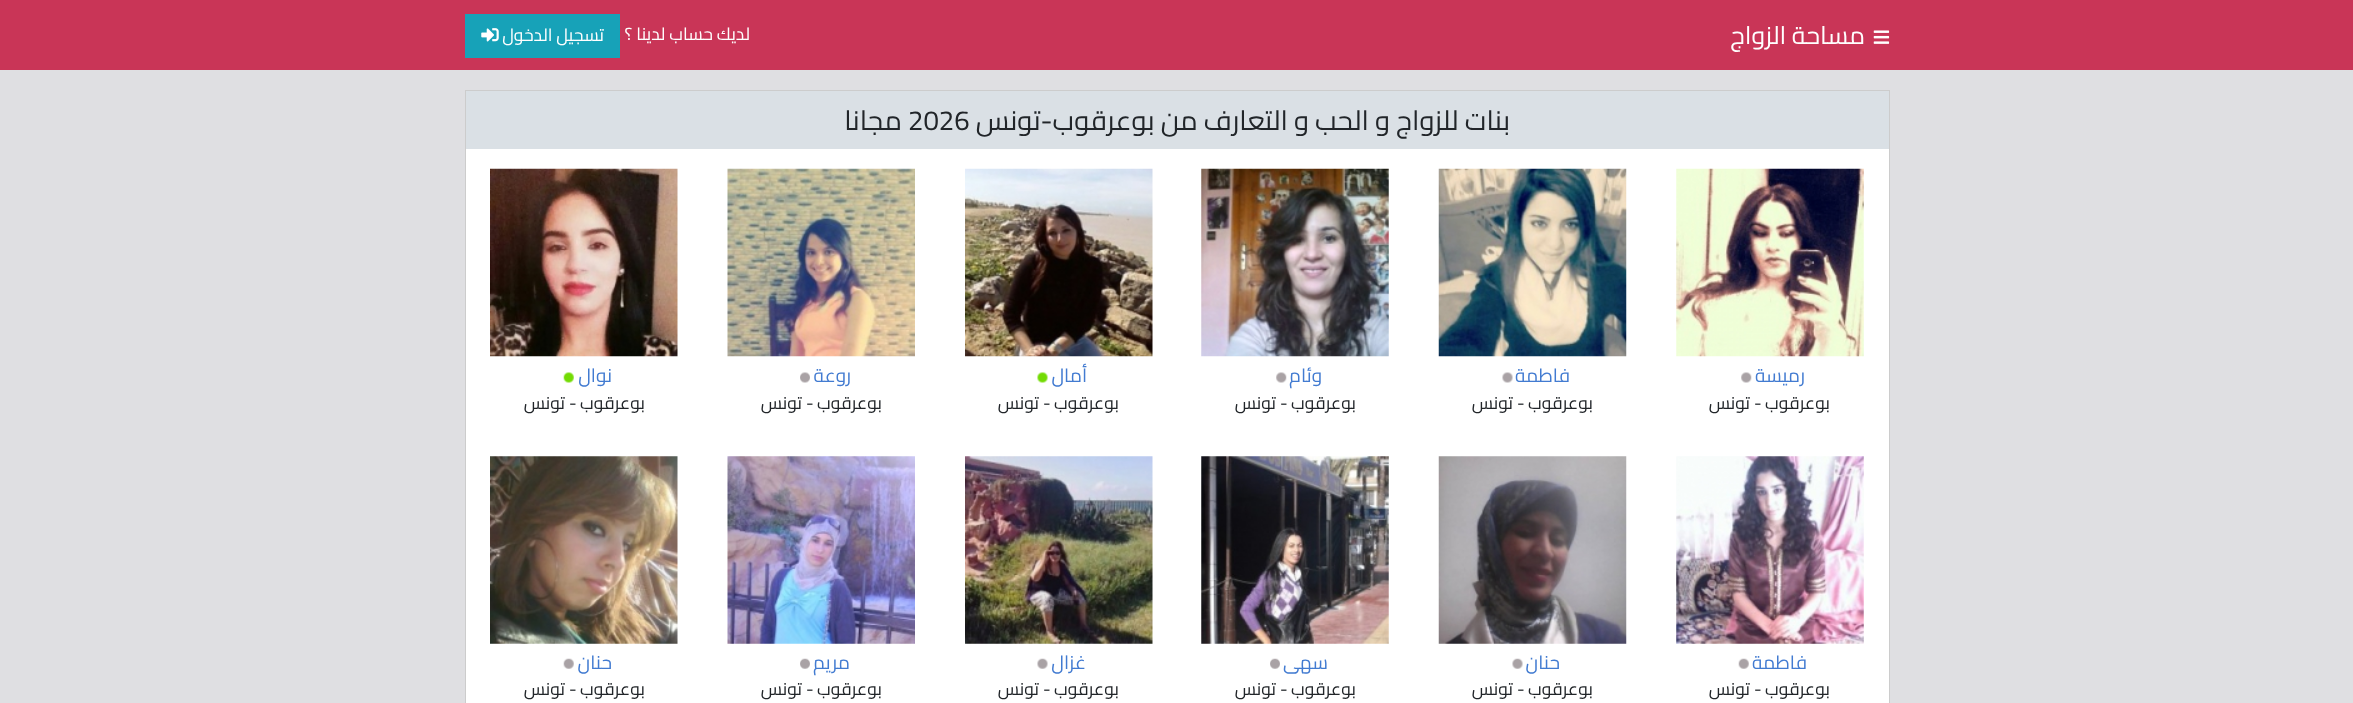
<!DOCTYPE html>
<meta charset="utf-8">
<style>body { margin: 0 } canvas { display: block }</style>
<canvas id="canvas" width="2353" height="703"></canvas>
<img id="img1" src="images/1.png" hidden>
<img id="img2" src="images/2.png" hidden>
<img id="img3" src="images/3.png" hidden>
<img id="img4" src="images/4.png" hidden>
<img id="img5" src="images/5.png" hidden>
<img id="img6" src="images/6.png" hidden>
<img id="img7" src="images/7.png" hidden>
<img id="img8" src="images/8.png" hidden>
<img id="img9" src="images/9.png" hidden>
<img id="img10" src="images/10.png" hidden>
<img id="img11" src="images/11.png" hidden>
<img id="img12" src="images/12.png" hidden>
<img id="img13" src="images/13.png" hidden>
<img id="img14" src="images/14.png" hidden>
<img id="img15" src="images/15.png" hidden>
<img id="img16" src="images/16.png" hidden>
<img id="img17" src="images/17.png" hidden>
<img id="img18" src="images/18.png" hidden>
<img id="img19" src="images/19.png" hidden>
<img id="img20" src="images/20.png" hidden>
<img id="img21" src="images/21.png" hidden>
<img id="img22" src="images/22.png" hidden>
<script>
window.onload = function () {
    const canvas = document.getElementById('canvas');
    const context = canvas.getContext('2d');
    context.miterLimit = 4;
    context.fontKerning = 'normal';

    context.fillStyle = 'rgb(223, 223, 226)';
    context.fillRect(0, 0, 2353, 703);
    context.fillStyle = 'rgb(201, 53, 87)';
    context.fillRect(0, 0, 2353, 70);
    context.drawImage(document.getElementById('img1'), 1873, 30, 17, 14);
    context.fillStyle = 'rgb(23, 162, 184)';
    context.fillRect(465, 14, 155, 44);
    context.drawImage(document.getElementById('img2'), 481, 28, 18, 14);
    context.fillStyle = 'rgb(255, 255, 255)';
    context.fillRect(466, 149, 1423, 554);
    context.strokeStyle = 'rgb(204, 204, 204)';
    context.strokeRect(465.5, 90.5, 1424, 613);
    context.fillStyle = 'rgb(218, 224, 229)';
    context.fillRect(466, 91, 1423, 58);
    context.drawImage(document.getElementById('img3'), 1676, 168, 188, 189);
    context.drawImage(document.getElementById('img4'), 1741, 372, 11, 11);
    context.drawImage(document.getElementById('img5'), 1438, 168, 189, 189);
    context.drawImage(document.getElementById('img6'), 1502, 372, 11, 11);
    context.drawImage(document.getElementById('img7'), 1201, 168, 188, 189);
    context.drawImage(document.getElementById('img4'), 1276, 372, 11, 11);
    context.drawImage(document.getElementById('img8'), 965, 168, 188, 189);
    context.drawImage(document.getElementById('img9'), 1037, 372, 11, 11);
    context.drawImage(document.getElementById('img10'), 727, 168, 188, 189);
    context.drawImage(document.getElementById('img11'), 800, 372, 10, 11);
    context.drawImage(document.getElementById('img12'), 490, 168, 188, 189);
    context.drawImage(document.getElementById('img13'), 563, 372, 11, 11);
    context.drawImage(document.getElementById('img14'), 1676, 456, 188, 188);
    context.drawImage(document.getElementById('img15'), 1738, 658, 11, 11);
    context.drawImage(document.getElementById('img16'), 1438, 456, 189, 188);
    context.drawImage(document.getElementById('img17'), 1512, 658, 11, 11);
    context.drawImage(document.getElementById('img18'), 1201, 456, 188, 188);
    context.drawImage(document.getElementById('img19'), 1270, 658, 10, 11);
    context.drawImage(document.getElementById('img20'), 965, 456, 188, 188);
    context.drawImage(document.getElementById('img17'), 1037, 658, 11, 11);
    context.drawImage(document.getElementById('img21'), 727, 456, 188, 188);
    context.drawImage(document.getElementById('img19'), 800, 658, 10, 11);
    context.drawImage(document.getElementById('img22'), 490, 456, 188, 188);
    context.drawImage(document.getElementById('img15'), 563, 658, 11, 11);
    context.direction = 'rtl';
    context.font = '25px Cairo';
    context.fillStyle = 'rgb(255, 255, 255)';
    context.fillText('مساحة الزواج', 1865, 44);
    context.font = '17.5px Cairo';
    context.fillText('لديك حساب لدينا ؟', 750, 40);
    context.fillText('تسجيل الدخول', 604, 41);
    context.font = '27.5px Cairo';
    context.fillStyle = 'rgb(33, 37, 41)';
    context.fillText('بنات للزواج و الحب و التعارف من بوعرقوب-تونس', 1510, 130);
    context.direction = 'ltr';
    context.fillText('2026', 908, 130);
    context.direction = 'rtl';
    context.fillText('مجانا', 902, 130);
    context.font = '19px Cairo';
    context.fillStyle = 'rgb(66, 123, 209)';
    context.fillText('رميسة', 1805, 382);
    context.font = '17.5px Cairo';
    context.fillStyle = 'rgb(33, 37, 41)';
    context.fillText('بوعرقوب', 1830, 409);
    context.direction = 'ltr';
    context.fillText('-', 1754, 409);
    context.direction = 'rtl';
    context.fillText('تونس', 1750, 409);
    context.font = '19px Cairo';
    context.fillStyle = 'rgb(66, 123, 209)';
    context.fillText('فاطمة', 1570, 382);
    context.font = '17.5px Cairo';
    context.fillStyle = 'rgb(33, 37, 41)';
    context.fillText('بوعرقوب', 1593, 409);
    context.direction = 'ltr';
    context.fillText('-', 1517, 409);
    context.direction = 'rtl';
    context.fillText('تونس', 1513, 409);
    context.font = '19px Cairo';
    context.fillStyle = 'rgb(66, 123, 209)';
    context.fillText('وئام', 1322, 382);
    context.font = '17.5px Cairo';
    context.fillStyle = 'rgb(33, 37, 41)';
    context.fillText('بوعرقوب', 1356, 409);
    context.direction = 'ltr';
    context.fillText('-', 1280, 409);
    context.direction = 'rtl';
    context.fillText('تونس', 1276, 409);
    context.font = '19px Cairo';
    context.fillStyle = 'rgb(66, 123, 209)';
    context.fillText('أمال', 1087, 382);
    context.font = '17.5px Cairo';
    context.fillStyle = 'rgb(33, 37, 41)';
    context.fillText('بوعرقوب', 1119, 409);
    context.direction = 'ltr';
    context.fillText('-', 1043, 409);
    context.direction = 'rtl';
    context.fillText('تونس', 1039, 409);
    context.font = '19px Cairo';
    context.fillStyle = 'rgb(66, 123, 209)';
    context.fillText('روعة', 851, 382);
    context.font = '17.5px Cairo';
    context.fillStyle = 'rgb(33, 37, 41)';
    context.fillText('بوعرقوب', 882, 409);
    context.direction = 'ltr';
    context.fillText('-', 806, 409);
    context.direction = 'rtl';
    context.fillText('تونس', 802, 409);
    context.font = '19px Cairo';
    context.fillStyle = 'rgb(66, 123, 209)';
    context.fillText('نوال', 612, 382);
    context.font = '17.5px Cairo';
    context.fillStyle = 'rgb(33, 37, 41)';
    context.fillText('بوعرقوب', 645, 409);
    context.direction = 'ltr';
    context.fillText('-', 569, 409);
    context.direction = 'rtl';
    context.fillText('تونس', 565, 409);
    context.font = '19px Cairo';
    context.fillStyle = 'rgb(66, 123, 209)';
    context.fillText('فاطمة', 1807, 669);
    context.font = '17.5px Cairo';
    context.fillStyle = 'rgb(33, 37, 41)';
    context.fillText('بوعرقوب', 1830, 695);
    context.direction = 'ltr';
    context.fillText('-', 1754, 695);
    context.direction = 'rtl';
    context.fillText('تونس', 1750, 695);
    context.font = '19px Cairo';
    context.fillStyle = 'rgb(66, 123, 209)';
    context.fillText('حنان', 1560, 669);
    context.font = '17.5px Cairo';
    context.fillStyle = 'rgb(33, 37, 41)';
    context.fillText('بوعرقوب', 1593, 695);
    context.direction = 'ltr';
    context.fillText('-', 1517, 695);
    context.direction = 'rtl';
    context.fillText('تونس', 1513, 695);
    context.font = '19px Cairo';
    context.fillStyle = 'rgb(66, 123, 209)';
    context.fillText('سهى', 1328, 669);
    context.font = '17.5px Cairo';
    context.fillStyle = 'rgb(33, 37, 41)';
    context.fillText('بوعرقوب', 1356, 695);
    context.direction = 'ltr';
    context.fillText('-', 1280, 695);
    context.direction = 'rtl';
    context.fillText('تونس', 1276, 695);
    context.font = '19px Cairo';
    context.fillStyle = 'rgb(66, 123, 209)';
    context.fillText('غزال', 1086, 669);
    context.font = '17.5px Cairo';
    context.fillStyle = 'rgb(33, 37, 41)';
    context.fillText('بوعرقوب', 1119, 695);
    context.direction = 'ltr';
    context.fillText('-', 1043, 695);
    context.direction = 'rtl';
    context.fillText('تونس', 1039, 695);
    context.font = '19px Cairo';
    context.fillStyle = 'rgb(66, 123, 209)';
    context.fillText('مريم', 850, 669);
    context.font = '17.5px Cairo';
    context.fillStyle = 'rgb(33, 37, 41)';
    context.fillText('بوعرقوب', 882, 695);
    context.direction = 'ltr';
    context.fillText('-', 806, 695);
    context.direction = 'rtl';
    context.fillText('تونس', 802, 695);
    context.font = '19px Cairo';
    context.fillStyle = 'rgb(66, 123, 209)';
    context.fillText('حنان', 612, 669);
    context.font = '17.5px Cairo';
    context.fillStyle = 'rgb(33, 37, 41)';
    context.fillText('بوعرقوب', 645, 695);
    context.direction = 'ltr';
    context.fillText('-', 569, 695);
    context.direction = 'rtl';
    context.fillText('تونس', 565, 695);
};
</script>
